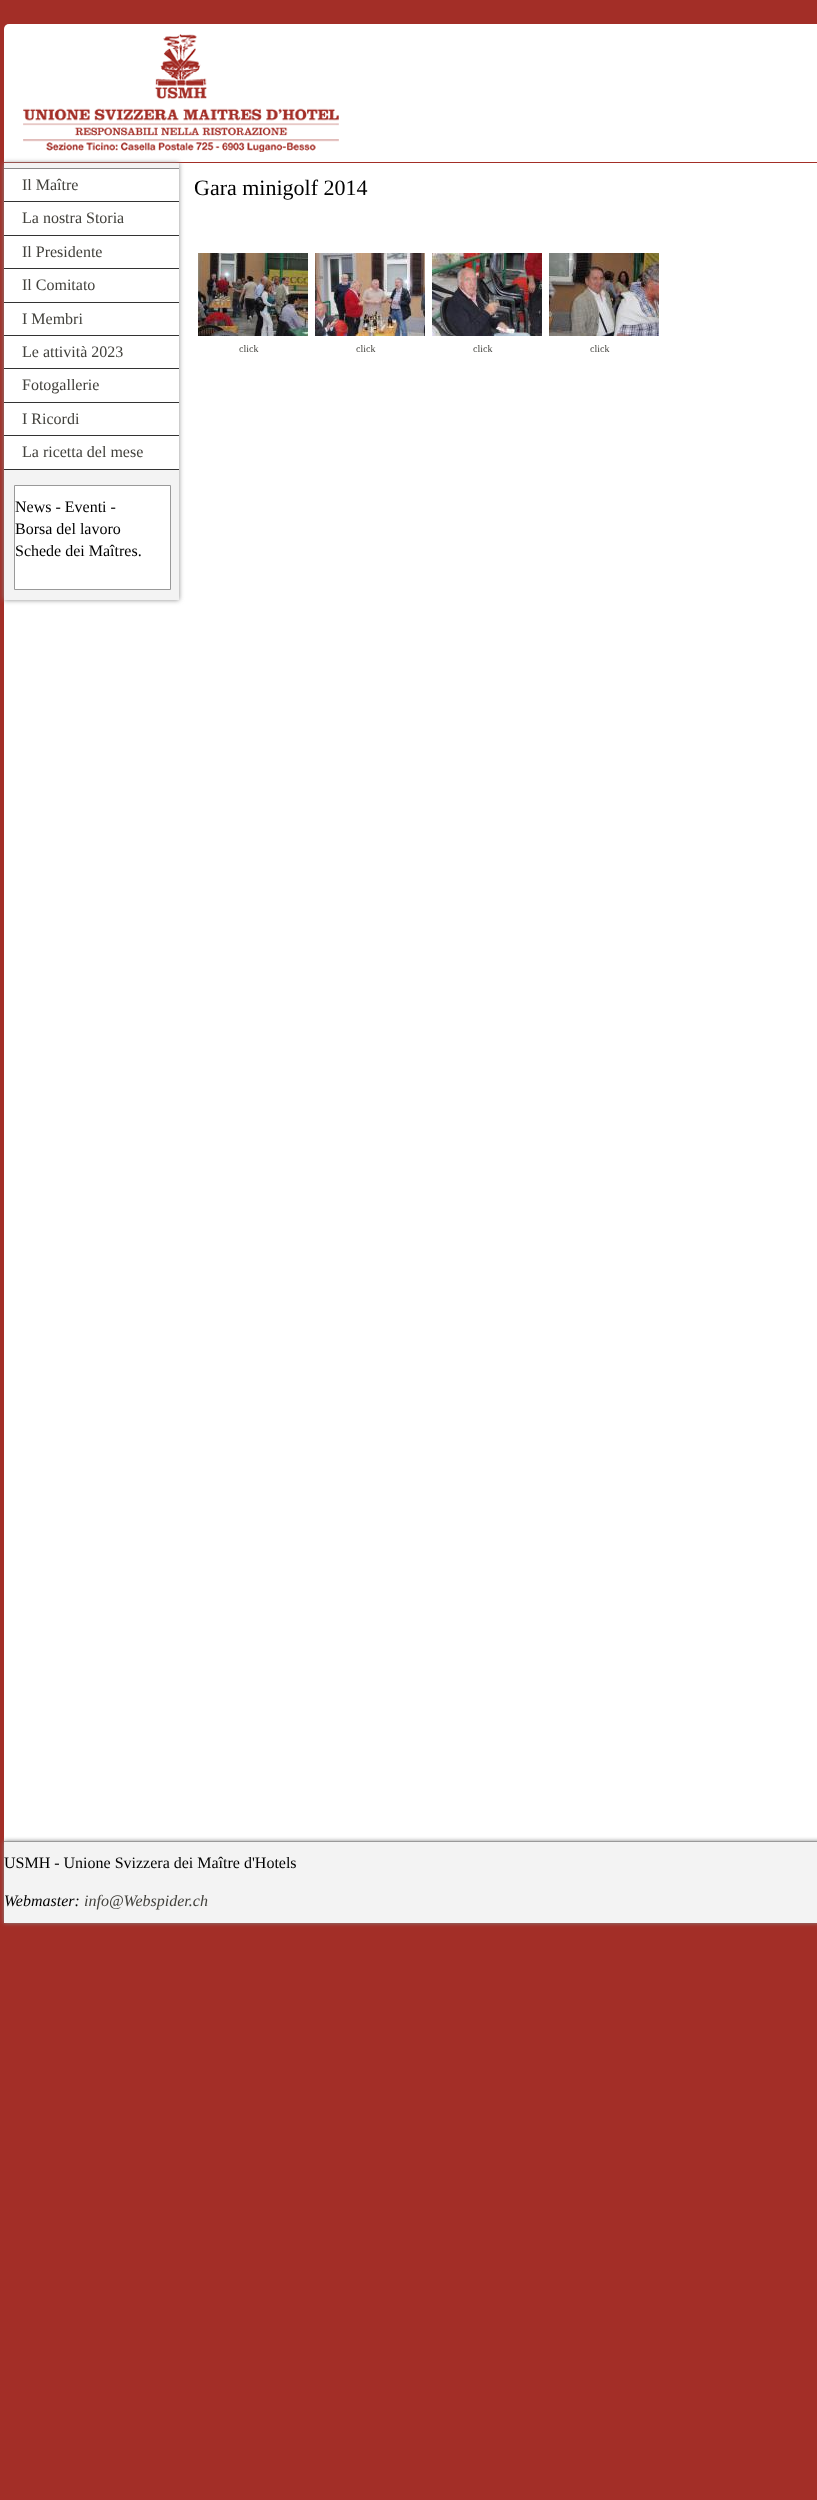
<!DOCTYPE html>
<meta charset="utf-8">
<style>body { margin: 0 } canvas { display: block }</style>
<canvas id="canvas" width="817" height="2500"></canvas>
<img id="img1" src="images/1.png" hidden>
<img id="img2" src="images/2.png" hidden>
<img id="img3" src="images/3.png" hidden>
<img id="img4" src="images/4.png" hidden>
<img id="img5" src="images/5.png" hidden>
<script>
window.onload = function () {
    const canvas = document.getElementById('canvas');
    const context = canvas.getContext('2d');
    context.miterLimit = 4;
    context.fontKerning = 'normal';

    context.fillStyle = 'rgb(163, 46, 39)';
    context.fillRect(0, 0, 817, 2500);
    context.fillStyle = 'rgb(255, 255, 255)';
    context.beginPath();
    context.roundRect(4, 24, 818, 1899, 5);
    context.fill();
    context.fillStyle = 'rgb(163, 46, 39)';
    context.fillRect(4, 162, 813, 1);
    context.drawImage(document.getElementById('img1'), 23, 34, 316, 118);
    context.fillStyle = 'rgb(136, 136, 136)';
    context.filter = 'blur(2.5px)';
    context.beginPath();
    context.rect(4, 163, 175, 437);
    context.fill();
    context.filter = 'none';
    context.fillStyle = 'rgb(243, 243, 243)';
    context.fillRect(4, 163, 175, 437);
    context.fillStyle = 'rgb(136, 136, 136)';
    context.fillRect(4, 168, 175, 1);
    context.fillStyle = 'rgb(51, 51, 51)';
    context.fillRect(4, 201, 175, 1);
    context.fillStyle = 'rgb(255, 255, 255)';
    context.fillRect(4, 169, 175, 32);
    context.fillStyle = 'rgb(51, 51, 51)';
    context.fillRect(4, 235, 175, 1);
    context.fillStyle = 'rgb(255, 255, 255)';
    context.fillRect(4, 202, 175, 33);
    context.fillStyle = 'rgb(51, 51, 51)';
    context.fillRect(4, 268, 175, 1);
    context.fillStyle = 'rgb(255, 255, 255)';
    context.fillRect(4, 236, 175, 32);
    context.fillStyle = 'rgb(51, 51, 51)';
    context.fillRect(4, 302, 175, 1);
    context.fillStyle = 'rgb(255, 255, 255)';
    context.fillRect(4, 269, 175, 33);
    context.fillStyle = 'rgb(51, 51, 51)';
    context.fillRect(4, 335, 175, 1);
    context.fillStyle = 'rgb(255, 255, 255)';
    context.fillRect(4, 303, 175, 32);
    context.fillStyle = 'rgb(51, 51, 51)';
    context.fillRect(4, 368, 175, 1);
    context.fillStyle = 'rgb(255, 255, 255)';
    context.fillRect(4, 336, 175, 32);
    context.fillStyle = 'rgb(51, 51, 51)';
    context.fillRect(4, 402, 175, 1);
    context.fillStyle = 'rgb(255, 255, 255)';
    context.fillRect(4, 369, 175, 33);
    context.fillStyle = 'rgb(51, 51, 51)';
    context.fillRect(4, 435, 175, 1);
    context.fillStyle = 'rgb(255, 255, 255)';
    context.fillRect(4, 403, 175, 32);
    context.fillStyle = 'rgb(51, 51, 51)';
    context.fillRect(4, 469, 175, 1);
    context.fillStyle = 'rgb(255, 255, 255)';
    context.fillRect(4, 436, 175, 33);
    context.beginPath();
    context.rect(14.5, 485.5, 156, 104);
    context.fill();
    context.strokeStyle = 'rgb(153, 153, 153)';
    context.stroke();
    context.drawImage(document.getElementById('img2'), 198, 253, 110, 83);
    context.drawImage(document.getElementById('img3'), 315, 253, 110, 83);
    context.drawImage(document.getElementById('img4'), 432, 253, 110, 83);
    context.drawImage(document.getElementById('img5'), 549, 253, 110, 83);
    context.fillStyle = 'rgb(136, 136, 136)';
    context.filter = 'blur(2px)';
    context.beginPath();
    context.rect(4, 1841, 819, 82);
    context.fill();
    context.filter = 'none';
    context.fillStyle = 'rgb(243, 243, 243)';
    context.fillRect(4, 1842, 813, 81);
    context.fillStyle = 'rgb(153, 153, 153)';
    context.fillRect(4, 1841, 813, 1);
    context.font = '16px Liberation Serif';
    context.fillStyle = 'rgb(66, 65, 60)';
    context.fillText('Il Maître', 22, 190);
    context.fillText('La nostra Storia', 22, 223);
    context.fillText('Il Presidente', 22, 257);
    context.fillText('Il Comitato', 22, 290);
    context.fillText('I Membri', 22, 324);
    context.fillText('Le attività 2023', 22, 357);
    context.fillText('Fotogallerie', 22, 390);
    context.fillText('I Ricordi', 22, 424);
    context.fillText('La ricetta del mese', 22, 457);
    context.fillStyle = 'rgb(0, 0, 0)';
    context.fillText('News - Eventi -', 15, 512);
    context.fillText('Borsa del lavoro', 15, 534);
    context.fillText('Schede dei Maîtres.', 15, 556);
    context.font = '22px Liberation Serif';
    context.fillText('Gara minigolf 2014', 194, 195);
    context.font = '10px Liberation Serif';
    context.fillStyle = 'rgb(66, 65, 60)';
    context.fillText('click', 239, 352);
    context.fillText('click', 356, 352);
    context.fillText('click', 473, 352);
    context.fillText('click', 590, 352);
    context.font = '16px Liberation Serif';
    context.fillStyle = 'rgb(0, 0, 0)';
    context.fillText('USMH - Unione Svizzera dei Maître d\'Hotels', 4, 1868);
    context.font = 'italic 16px Liberation Serif';
    context.fillText('Webmaster:', 4, 1906);
    context.fillStyle = 'rgb(66, 65, 60)';
    context.fillText('info@Webspider.ch', 84, 1906);
};
</script>
